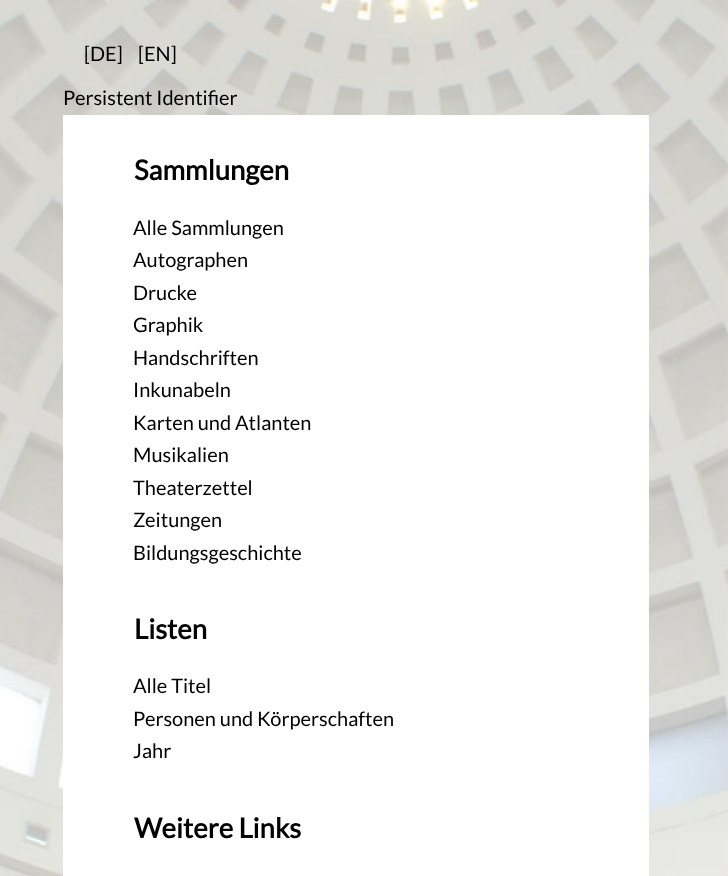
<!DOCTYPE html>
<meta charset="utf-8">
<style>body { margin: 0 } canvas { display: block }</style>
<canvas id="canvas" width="728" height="876"></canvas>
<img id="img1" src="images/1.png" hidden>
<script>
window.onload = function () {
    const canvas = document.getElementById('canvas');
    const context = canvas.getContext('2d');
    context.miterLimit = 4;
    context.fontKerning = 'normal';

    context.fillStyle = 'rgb(255, 255, 255)';
    context.fillRect(0, 0, 728, 876);
    context.drawImage(document.getElementById('img1'), 0, 0, 728, 876);
    context.fillRect(63, 115, 586, 761);
    context.font = '20px Lato';
    context.fillStyle = 'rgb(0, 0, 0)';
    context.fillText('[DE]', 84, 61);
    context.fillText('[EN]', 138, 61);
    context.fillText('Persistent Identifier', 63, 105);
    context.font = 'bold 27.5px Lato';
    context.fillText('Sammlungen', 134, 180);
    context.font = '20px Lato';
    context.fillText('Alle Sammlungen', 133, 235);
    context.fillText('Autographen', 133, 267);
    context.fillText('Drucke', 133, 300);
    context.fillText('Graphik', 133, 332);
    context.fillText('Handschriften', 133, 365);
    context.fillText('Inkunabeln', 133, 397);
    context.fillText('Karten und Atlanten', 133, 430);
    context.fillText('Musikalien', 133, 462);
    context.fillText('Theaterzettel', 133, 495);
    context.fillText('Zeitungen', 133, 527);
    context.fillText('Bildungsgeschichte', 133, 560);
    context.font = 'bold 27.5px Lato';
    context.fillText('Listen', 134, 639);
    context.font = '20px Lato';
    context.fillText('Alle Titel', 133, 693);
    context.fillText('Personen und Körperschaften', 133, 726);
    context.fillText('Jahr', 133, 758);
    context.font = 'bold 27.5px Lato';
    context.fillText('Weitere Links', 134, 838);
};
</script>
